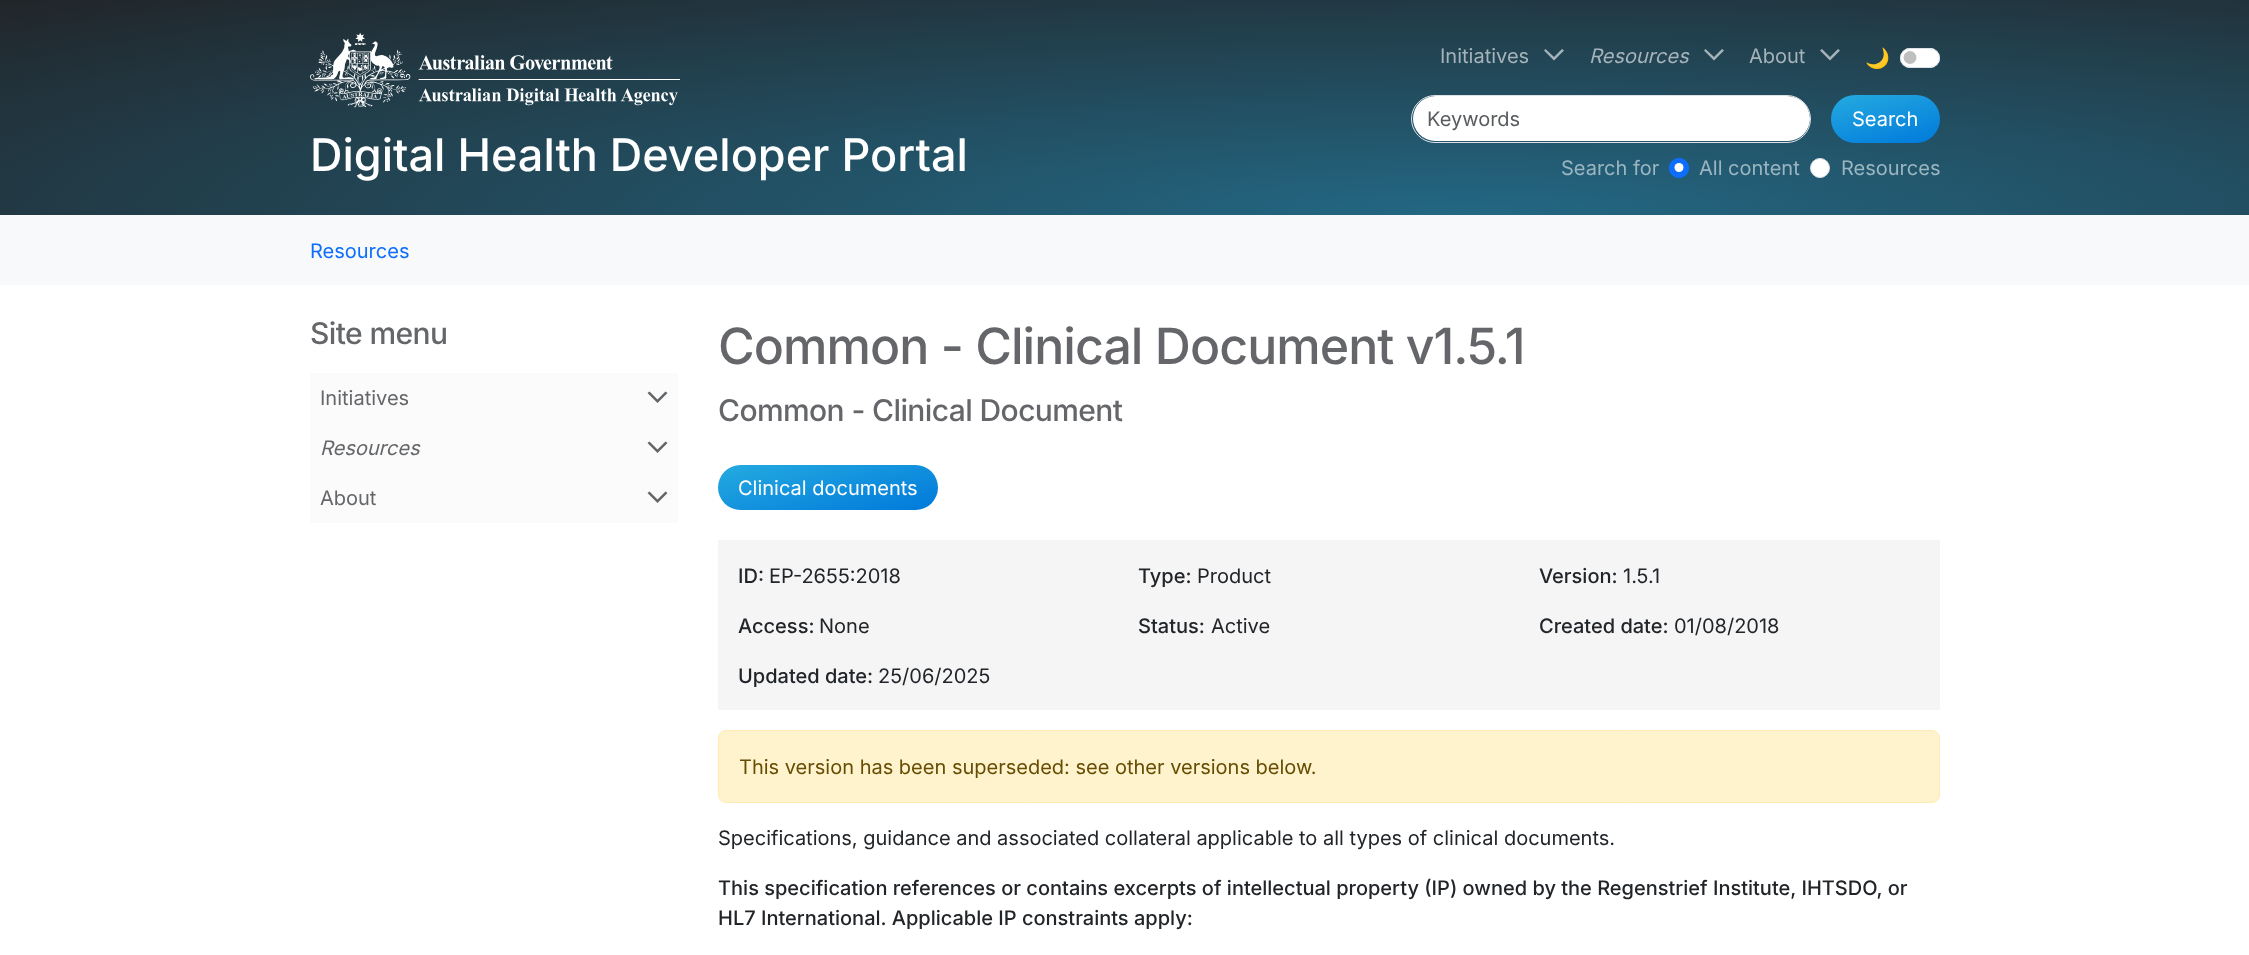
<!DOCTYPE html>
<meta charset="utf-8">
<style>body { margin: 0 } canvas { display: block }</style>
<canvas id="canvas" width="2249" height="955"></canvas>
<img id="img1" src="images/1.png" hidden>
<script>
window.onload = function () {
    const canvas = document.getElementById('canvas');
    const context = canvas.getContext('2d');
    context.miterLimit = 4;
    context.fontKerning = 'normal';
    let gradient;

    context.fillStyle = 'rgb(255, 255, 255)';
    context.fillRect(0, 0, 2249, 955);
    gradient = context.createRadialGradient(1463, 1462.57, 0, 1463, 1462.57, 2068);
    gradient.addColorStop(0, 'rgb(35, 104, 132)');
    gradient.addColorStop(1, 'rgb(33, 37, 41)');
    context.fillStyle = gradient;
    context.beginPath();
    context.rect(0, 0, 2249, 215);
    context.save();
    context.clip();
    context.scale(1, 304 / 2068);
    context.fillRect(0, 0, 2249, 6497);
    context.restore();
    context.drawImage(document.getElementById('img1'), 310, 33, 370, 75);
    context.fillStyle = 'rgba(222, 226, 230, 0.7)';
    context.beginPath();
    context.moveTo(1554, 60.5);
    context.lineTo(1544, 50.5);
    context.lineTo(1545.5, 49);
    context.lineTo(1554, 57);
    context.lineTo(1562, 49);
    context.lineTo(1564, 50.5);
    context.closePath();
    context.fill();
    context.beginPath();
    context.moveTo(1714, 60.5);
    context.lineTo(1704, 50.5);
    context.lineTo(1705.5, 49);
    context.lineTo(1714, 57);
    context.lineTo(1722, 49);
    context.lineTo(1724, 50.5);
    context.closePath();
    context.fill();
    context.beginPath();
    context.moveTo(1830, 60.5);
    context.lineTo(1820, 50.5);
    context.lineTo(1822, 49);
    context.lineTo(1830, 57);
    context.lineTo(1838, 49);
    context.lineTo(1840, 50.5);
    context.closePath();
    context.fill();
    context.fillStyle = 'rgb(255, 255, 255)';
    context.beginPath();
    context.roundRect(1900, 48, 40, 20, 10);
    context.fill();
    context.fillStyle = 'rgb(191, 191, 191)';
    context.beginPath();
    context.arc(1910, 57.5, 6.5, 0, 2 * Math.PI);
    context.fill();
    context.beginPath();
    context.roundRect(1900.5, 48.5, 39, 19, 9.5);
    context.strokeStyle = 'rgb(222, 226, 230)';
    context.stroke();
    context.fillStyle = 'rgb(255, 255, 255)';
    context.beginPath();
    context.roundRect(1413, 96, 397, 45, 22.5);
    context.fill();
    context.beginPath();
    context.roundRect(1411.5, 95.5, 399, 47, 23.5);
    context.stroke();
    gradient = context.createLinearGradient(1876, 83, 1895, 155);
    gradient.addColorStop(0, 'rgb(37, 171, 224)');
    gradient.addColorStop(1, 'rgb(0, 121, 219)');
    context.fillStyle = gradient;
    context.beginPath();
    context.roundRect(1831, 95, 109, 48, 24);
    context.fill();
    context.fillStyle = 'rgb(13, 110, 253)';
    context.beginPath();
    context.arc(1679, 168, 10, 0, 2 * Math.PI);
    context.fill();
    context.fillStyle = 'rgb(255, 255, 255)';
    context.beginPath();
    context.arc(1679, 167.5, 4.5, 0, 2 * Math.PI);
    context.fill();
    context.beginPath();
    context.arc(1679, 168, 9.5, 0, 2 * Math.PI);
    context.strokeStyle = 'rgb(13, 110, 253)';
    context.stroke();
    context.beginPath();
    context.arc(1820, 168, 9.5, 0, 2 * Math.PI);
    context.fill();
    context.strokeStyle = 'rgb(222, 226, 230)';
    context.stroke();
    context.fillStyle = 'rgb(248, 249, 250)';
    context.fillRect(0, 215, 2249, 70);
    context.fillStyle = 'rgb(251, 251, 251)';
    context.fillRect(310, 373, 368, 150);
    context.fillStyle = 'rgb(98, 101, 104)';
    context.beginPath();
    context.moveTo(657.5, 403);
    context.lineTo(647.5, 393);
    context.lineTo(649.5, 391.5);
    context.lineTo(657.5, 399.5);
    context.lineTo(665.5, 391.5);
    context.lineTo(667.5, 393);
    context.closePath();
    context.fill();
    context.beginPath();
    context.moveTo(657.5, 453);
    context.lineTo(647.5, 443);
    context.lineTo(649.5, 441.5);
    context.lineTo(657.5, 449.5);
    context.lineTo(665.5, 441.5);
    context.lineTo(667.5, 443);
    context.closePath();
    context.fill();
    context.beginPath();
    context.moveTo(657.5, 503);
    context.lineTo(647.5, 493);
    context.lineTo(649.5, 491.5);
    context.lineTo(657.5, 499.5);
    context.lineTo(665.5, 491.5);
    context.lineTo(667.5, 493);
    context.closePath();
    context.fill();
    gradient = context.createLinearGradient(815, 439, 840, 536);
    gradient.addColorStop(0, 'rgb(37, 171, 224)');
    gradient.addColorStop(1, 'rgb(0, 121, 219)');
    context.fillStyle = gradient;
    context.beginPath();
    context.roundRect(718, 465, 220, 45, 22.5);
    context.fill();
    context.fillStyle = 'rgb(245, 245, 245)';
    context.fillRect(718, 540, 1222, 170);
    context.fillStyle = 'rgb(255, 243, 205)';
    context.beginPath();
    context.roundRect(718.5, 730.5, 1221, 72, 7.5);
    context.fill();
    context.strokeStyle = 'rgb(255, 236, 181)';
    context.stroke();
    context.font = '500 45px Inter';
    context.fillStyle = 'rgb(255, 255, 255)';
    context.fillText('Digital Health Developer Portal', 310, 171);
    context.font = '20px Inter';
    context.fillStyle = 'rgb(166, 179, 186)';
    context.fillText('Initiatives', 1440, 63);
    context.font = 'italic 20px Inter';
    context.fillText('Resources', 1589, 63);
    context.font = '20px Inter';
    context.fillText('About', 1749, 63);
    context.font = '20px Noto Color Emoji';
    context.fillStyle = 'rgb(222, 226, 230)';
    context.fillText('🌙', 1865, 65);
    context.font = '20px Inter';
    context.fillStyle = 'rgb(89, 92, 95)';
    context.fillText('Keywords', 1427, 126);
    context.fillStyle = 'rgb(255, 255, 255)';
    context.fillText('Search', 1852, 126);
    context.fillStyle = 'rgb(156, 182, 193)';
    context.fillText('Search for', 1561, 175);
    context.fillText('All content', 1699, 175);
    context.fillText('Resources', 1841, 175);
    context.fillStyle = 'rgb(13, 110, 253)';
    context.fillText('Resources', 310, 258);
    context.letterSpacing = '-0.6px';
    context.font = '500 30px Inter';
    context.fillStyle = 'rgb(100, 102, 105)';
    context.fillText('Site menu', 310, 344);
    context.letterSpacing = '0px';
    context.font = '20px Inter';
    context.fillText('Initiatives', 320, 405);
    context.font = 'italic 20px Inter';
    context.fillText('Resources', 320, 455);
    context.font = '20px Inter';
    context.fillText('About', 320, 505);
    context.letterSpacing = '-0.95px';
    context.font = '500 50px Inter';
    context.fillText('Common - Clinical Document v1.5.1', 718, 364);
    context.letterSpacing = '-0.6px';
    context.font = '500 30px Inter';
    context.fillText('Common - Clinical Document', 718, 421);
    context.letterSpacing = '0px';
    context.font = '20px Inter';
    context.fillStyle = 'rgb(255, 255, 255)';
    context.fillText('Clinical documents', 738, 495);
    context.font = '500 20px Inter';
    context.fillStyle = 'rgb(33, 37, 41)';
    context.fillText('ID:', 738, 583);
    context.font = '20px Inter';
    context.fillText('EP-2655:2018', 769, 583);
    context.font = '500 20px Inter';
    context.fillText('Type:', 1138, 583);
    context.font = '20px Inter';
    context.fillText('Product', 1197, 583);
    context.font = '500 20px Inter';
    context.fillText('Version:', 1539, 583);
    context.font = '20px Inter';
    context.fillText('1.5.1', 1623, 583);
    context.font = '500 20px Inter';
    context.fillText('Access:', 738, 633);
    context.font = '20px Inter';
    context.fillText('None', 819, 633);
    context.font = '500 20px Inter';
    context.fillText('Status:', 1138, 633);
    context.font = '20px Inter';
    context.fillText('Active', 1211, 633);
    context.font = '500 20px Inter';
    context.fillText('Created date:', 1539, 633);
    context.font = '20px Inter';
    context.fillText('01/08/2018', 1674, 633);
    context.font = '500 20px Inter';
    context.fillText('Updated date:', 738, 683);
    context.font = '20px Inter';
    context.fillText('25/06/2025', 878, 683);
    context.fillStyle = 'rgb(102, 77, 3)';
    context.fillText('This version has been superseded: see other versions below.', 739, 774);
    context.fillStyle = 'rgb(33, 37, 41)';
    context.fillText('Specifications, guidance and associated collateral applicable to all types of clinical documents.', 718, 845);
    context.font = '500 20px Inter';
    context.fillText('This specification references or contains excerpts of intellectual property (IP) owned by the Regenstrief Institute, IHTSDO, or', 718, 895);
    context.fillText('HL7 International. Applicable IP constraints apply:', 718, 925);
};
</script>
